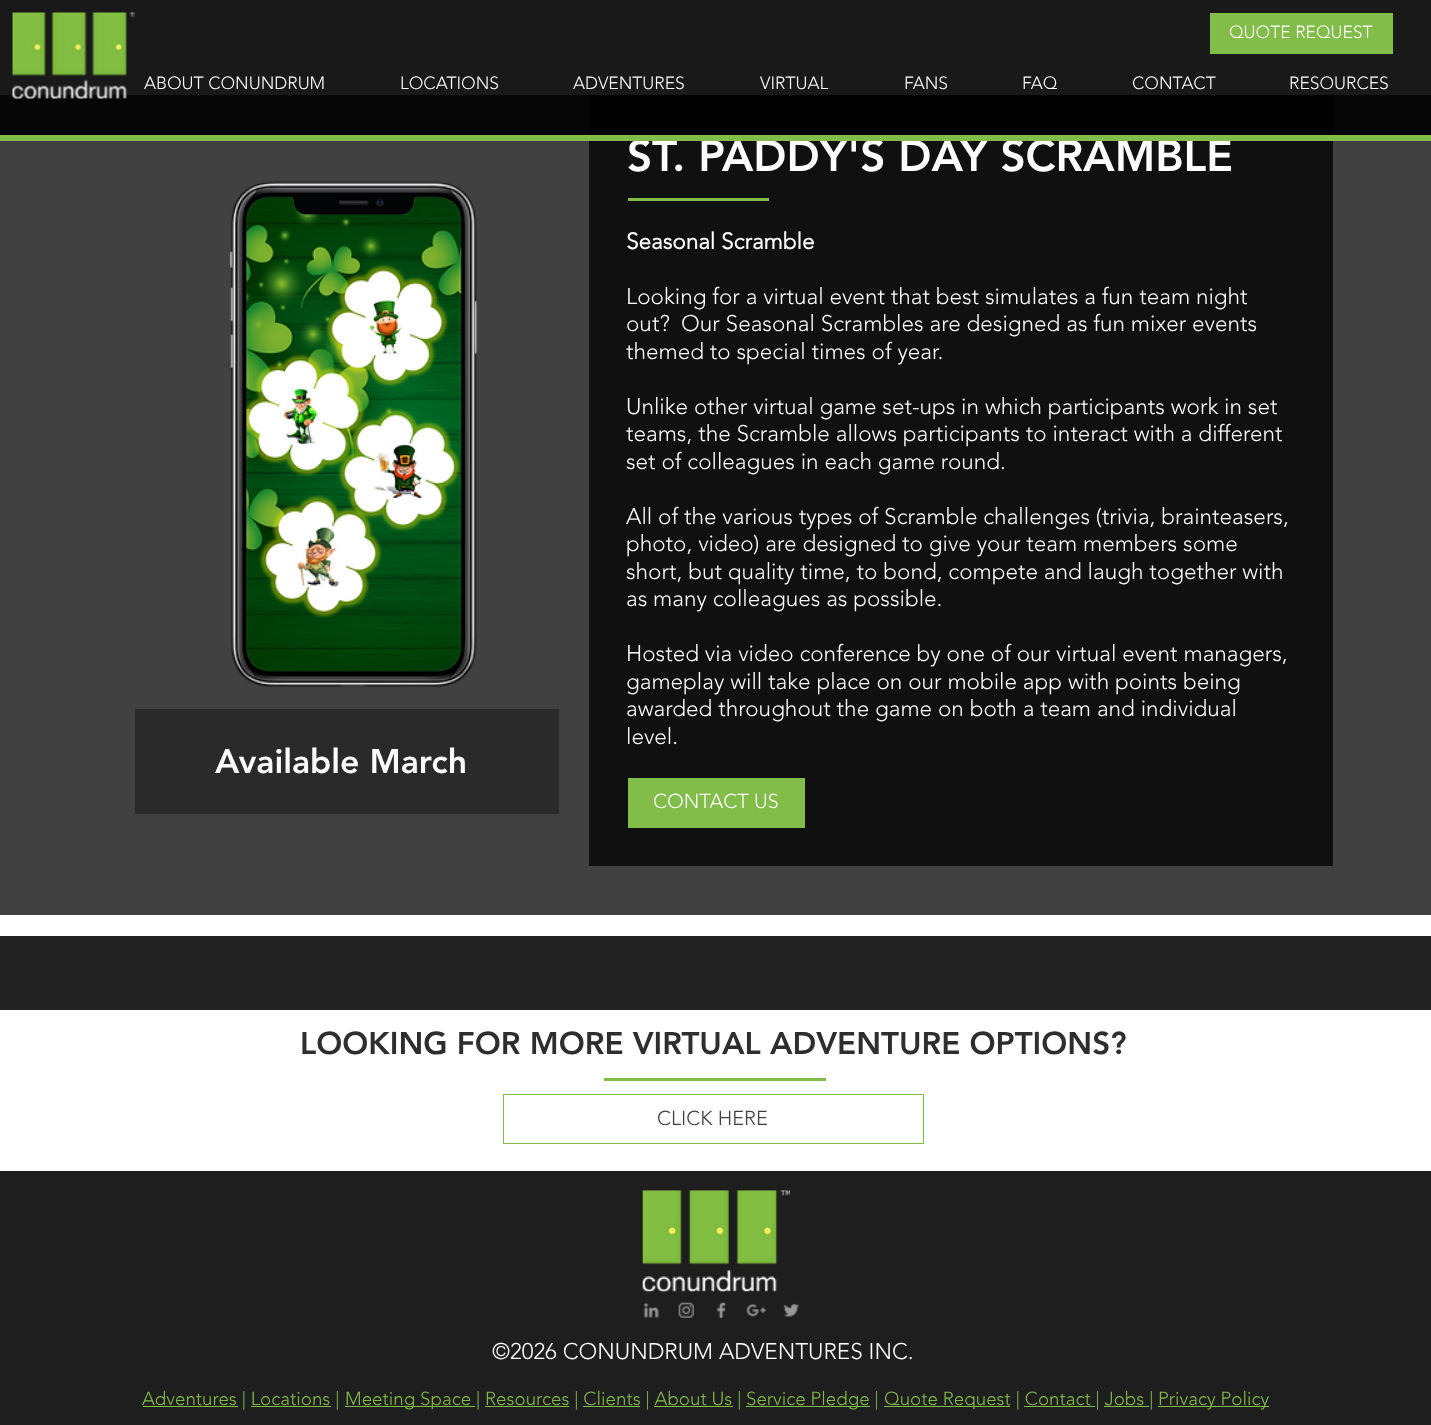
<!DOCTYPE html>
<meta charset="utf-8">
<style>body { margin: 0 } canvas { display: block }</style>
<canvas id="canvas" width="1431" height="1425"></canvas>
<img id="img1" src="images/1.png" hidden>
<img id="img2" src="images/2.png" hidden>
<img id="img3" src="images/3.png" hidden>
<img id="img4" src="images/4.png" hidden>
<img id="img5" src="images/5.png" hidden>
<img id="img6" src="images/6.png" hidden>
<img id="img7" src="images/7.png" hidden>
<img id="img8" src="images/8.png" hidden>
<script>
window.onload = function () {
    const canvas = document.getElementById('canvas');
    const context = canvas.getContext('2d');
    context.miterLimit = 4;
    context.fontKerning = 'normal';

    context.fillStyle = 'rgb(255, 255, 255)';
    context.fillRect(0, 0, 1431, 1425);
    context.fillStyle = 'rgb(65, 65, 65)';
    context.fillRect(0, 95, 1431, 820);
    context.fillStyle = 'rgb(16, 16, 16)';
    context.fillRect(589, 95, 744, 771);
    context.fillStyle = 'rgba(0, 0, 0, 0.9)';
    context.fillRect(0, 0, 1431, 135);
    context.drawImage(document.getElementById('img1'), 12, 12, 123, 87);
    context.fillStyle = 'rgb(130, 189, 73)';
    context.fillRect(1210, 13, 183, 41);
    context.drawImage(document.getElementById('img2'), 229, 181, 249, 506);
    context.fillRect(628, 198, 141, 3);
    context.fillRect(628, 778, 177, 50);
    context.fillStyle = 'rgb(42, 42, 42)';
    context.fillRect(135, 709, 424, 105);
    context.fillStyle = 'rgb(36, 35, 35)';
    context.fillRect(0, 936, 1431, 74);
    context.fillStyle = 'rgb(130, 189, 73)';
    context.fillRect(604, 1078, 222, 3);
    context.strokeStyle = 'rgb(130, 189, 73)';
    context.strokeRect(503.5, 1094.5, 420, 49);
    context.fillStyle = 'rgb(31, 30, 30)';
    context.fillRect(0, 1171, 1431, 254);
    context.drawImage(document.getElementById('img3'), 642, 1190, 148, 102);
    context.drawImage(document.getElementById('img4'), 643, 1302, 16, 16);
    context.drawImage(document.getElementById('img5'), 678, 1302, 16, 16);
    context.drawImage(document.getElementById('img6'), 716, 1302, 11, 17);
    context.drawImage(document.getElementById('img7'), 746, 1303, 21, 14);
    context.drawImage(document.getElementById('img8'), 783, 1303, 16, 14);
    context.fillStyle = 'rgb(130, 189, 73)';
    context.fillRect(143, 1406, 95, 1);
    context.fillRect(251, 1406, 80, 1);
    context.fillRect(345, 1406, 130, 1);
    context.fillRect(485, 1406, 84, 1);
    context.fillRect(583, 1406, 57, 1);
    context.fillRect(654, 1406, 79, 1);
    context.fillRect(746, 1406, 124, 1);
    context.fillRect(884, 1406, 126, 1);
    context.fillRect(1024, 1406, 71, 1);
    context.fillRect(1104, 1406, 45, 1);
    context.fillRect(1158, 1406, 111, 1);
    context.font = '300 17.5px "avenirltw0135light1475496"';
    context.fillStyle = 'rgb(252, 252, 252)';
    context.fillText('QUOTE REQUEST', 1229, 38);
    context.fillText('ABOUT CONUNDRUM', 144, 89);
    context.fillText('LOCATIONS', 400, 89);
    context.fillText('ADVENTURES', 573, 89);
    context.fillText('VIRTUAL', 760, 89);
    context.fillText('FANS', 904, 89);
    context.fillText('FAQ', 1022, 89);
    context.fillText('CONTACT', 1132, 89);
    context.fillText('RESOURCES', 1289, 89);
    context.font = '900 43.75px "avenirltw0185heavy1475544"';
    context.fillText('ST. PADDY\'S DAY SCRAMBLE', 627, 171);
    context.fillStyle = 'rgb(130, 189, 73)';
    context.fillRect(0, 135, 1431, 6);
    context.font = 'bold 22.5px "avenirltw0135light1475496"';
    context.fillStyle = 'rgb(252, 252, 252)';
    context.fillText('Seasonal Scramble', 626, 249);
    context.font = '300 22.5px "avenirltw0135light1475496"';
    context.fillText('Looking for a virtual event that best simulates a fun team night', 626, 304);
    context.fillText('out?', 626, 331);
    context.fillText('Our Seasonal Scrambles are designed as fun mixer events', 681, 331);
    context.fillText('themed to special times of year.', 626, 359);
    context.fillText('Unlike other virtual game set-ups in which participants work in set', 626, 414);
    context.fillText('teams, the Scramble allows participants to interact with a different', 626, 441);
    context.fillText('set of colleagues in each game round.', 626, 469);
    context.fillText('All of the various types of Scramble challenges (trivia, brainteasers,', 626, 524);
    context.fillText('photo, video) are designed to give your team members some', 626, 551);
    context.fillText('short, but quality time, to bond, compete and laugh together with', 626, 579);
    context.fillText('as many colleagues as possible.', 626, 606);
    context.fillText('Hosted via video conference by one of our virtual event managers,', 626, 661);
    context.fillText('gameplay will take place on our mobile app with points being', 626, 689);
    context.fillText('awarded throughout the game on both a team and individual', 626, 716);
    context.fillText('level.', 626, 744);
    context.font = '300 20px "avenirltw0135light1475496"';
    context.fillText('CONTACT US', 653, 808);
    context.font = '900 33.75px "avenirltw0185heavy1475544"';
    context.fillText('Available March', 215, 773);
    context.font = '900 31.25px "avenirltw0185heavy1475544"';
    context.fillStyle = 'rgb(47, 46, 46)';
    context.fillText('LOOKING FOR MORE VIRTUAL ADVENTURE OPTIONS?', 300, 1054);
    context.font = '300 20px "avenirltw0135light1475496"';
    context.fillStyle = 'rgb(65, 65, 65)';
    context.fillText('CLICK HERE', 657, 1125);
    context.font = '300 22.5px "avenirltw0135light1475496"';
    context.fillStyle = 'rgb(252, 252, 252)';
    context.fillText('©2026 CONUNDRUM ADVENTURES INC.', 492, 1359);
    context.font = '300 18.75px "avenirltw0135light1475496"';
    context.fillStyle = 'rgb(130, 189, 73)';
    context.fillText('Adventures | Locations |', 142, 1405);
    context.fillText('Meeting Space | Resources | Clients | About Us |', 345, 1405);
    context.fillText('Service Pledge |', 746, 1405);
    context.fillText('Quote Request | Contact | Jobs |', 884, 1405);
    context.fillText('Privacy Policy', 1158, 1405);
};
</script>
